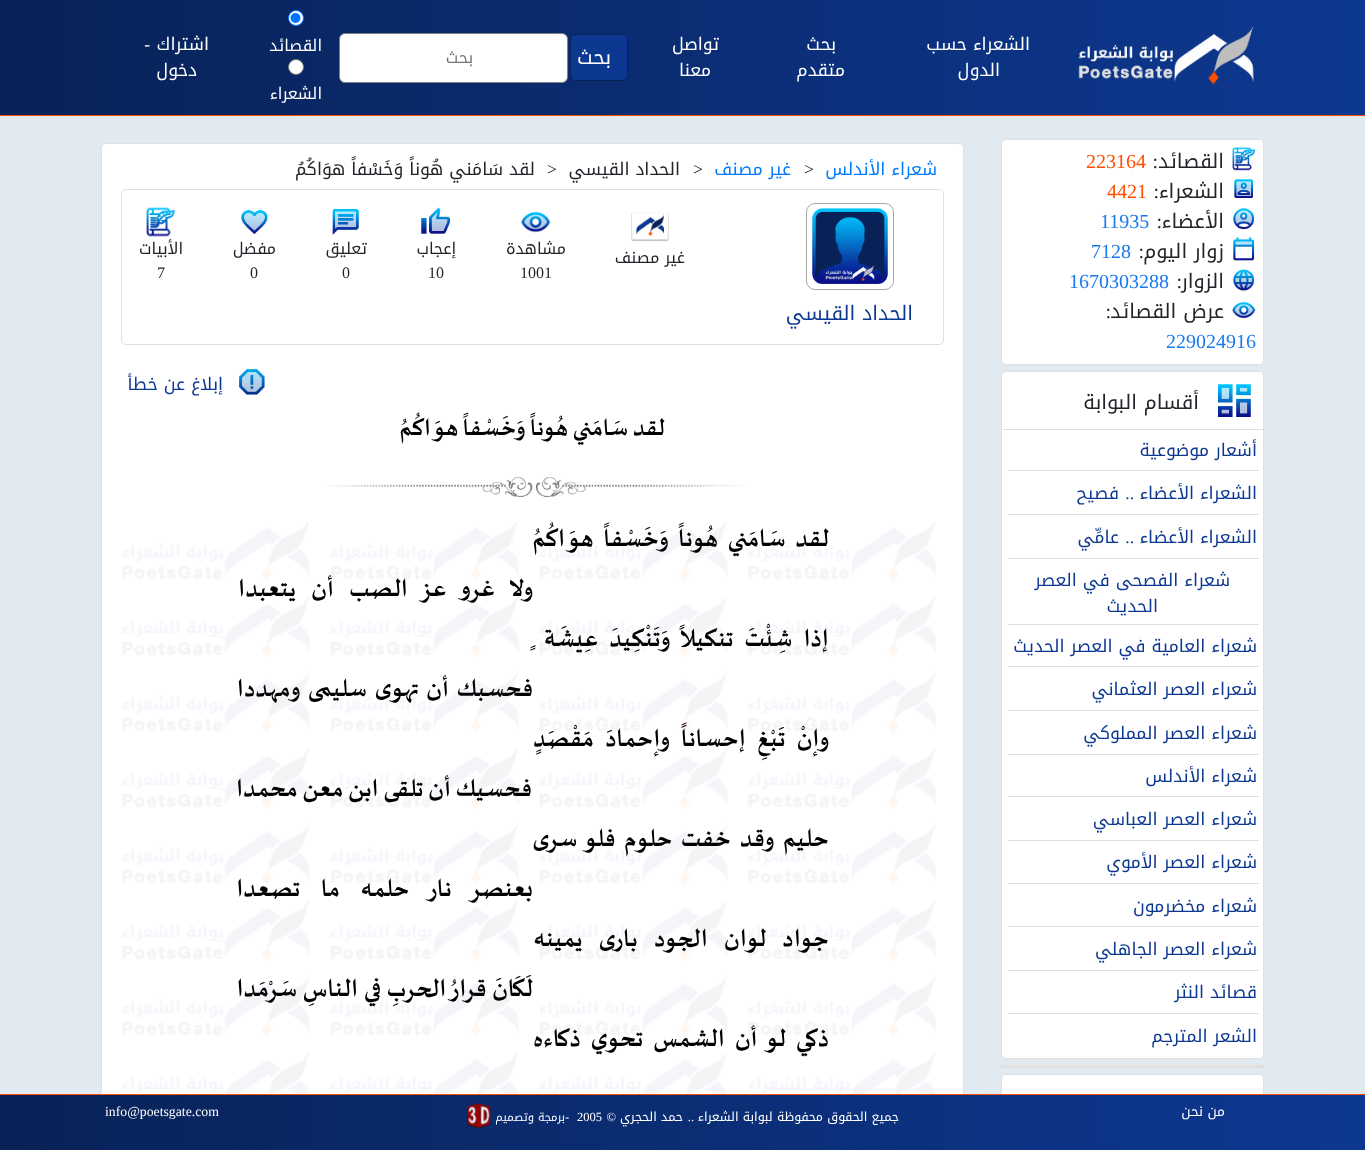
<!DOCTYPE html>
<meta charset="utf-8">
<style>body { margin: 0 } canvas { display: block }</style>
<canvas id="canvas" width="1365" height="1150"></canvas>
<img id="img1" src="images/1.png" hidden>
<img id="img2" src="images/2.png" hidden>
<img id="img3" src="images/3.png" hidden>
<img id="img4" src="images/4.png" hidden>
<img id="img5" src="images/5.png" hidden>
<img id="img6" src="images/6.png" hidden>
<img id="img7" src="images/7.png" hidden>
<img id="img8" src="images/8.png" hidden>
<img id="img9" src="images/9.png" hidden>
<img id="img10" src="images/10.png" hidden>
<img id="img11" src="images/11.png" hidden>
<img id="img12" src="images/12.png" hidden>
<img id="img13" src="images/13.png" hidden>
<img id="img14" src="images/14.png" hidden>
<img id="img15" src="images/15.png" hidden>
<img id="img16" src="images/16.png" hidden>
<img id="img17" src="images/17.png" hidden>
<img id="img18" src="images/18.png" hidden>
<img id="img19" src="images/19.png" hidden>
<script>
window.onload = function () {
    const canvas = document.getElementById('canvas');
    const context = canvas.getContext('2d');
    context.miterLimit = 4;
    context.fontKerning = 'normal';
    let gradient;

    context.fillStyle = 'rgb(225, 234, 240)';
    context.fillRect(0, 0, 1365, 1150);
    gradient = context.createLinearGradient(0, 58, 1365, 57);
    gradient.addColorStop(0, 'rgb(8, 34, 87)');
    gradient.addColorStop(1, 'rgb(13, 56, 145)');
    context.fillStyle = gradient;
    context.fillRect(0, 0, 1365, 115);
    context.fillStyle = 'rgb(255, 78, 0)';
    context.fillRect(0, 115, 1365, 1);
    context.drawImage(document.getElementById('img1'), 1078, 25, 176, 60);
    context.fillStyle = 'rgb(13, 56, 145)';
    context.beginPath();
    context.roundRect(570.5, 34.5, 57, 46, 4.5);
    context.fill();
    context.strokeStyle = 'rgb(8, 34, 87)';
    context.stroke();
    context.fillStyle = 'rgb(255, 255, 255)';
    context.beginPath();
    context.roundRect(339.5, 33.5, 228, 49, 5.5);
    context.fill();
    context.strokeStyle = 'rgb(128, 128, 128)';
    context.stroke();
    context.beginPath();
    context.arc(296, 18, 7.5, 0, 2 * Math.PI);
    context.fill();
    context.strokeStyle = 'rgb(0, 117, 255)';
    context.stroke();
    context.fillStyle = 'rgb(0, 117, 255)';
    context.beginPath();
    context.arc(295.5, 18, 5, 0, 2 * Math.PI);
    context.fill();
    context.fillStyle = 'rgb(255, 255, 255)';
    context.beginPath();
    context.arc(296, 67, 7.5, 0, 2 * Math.PI);
    context.fill();
    context.strokeStyle = 'rgb(118, 118, 118)';
    context.stroke();
    context.beginPath();
    context.roundRect(1001, 139, 263, 226, 5);
    context.fill();
    context.beginPath();
    context.roundRect(1001.5, 139.5, 262, 225, 4.5);
    context.strokeStyle = 'rgba(0, 0, 0, 0.12)';
    context.stroke();
    context.drawImage(document.getElementById('img2'), 1232, 147, 24, 24);
    context.drawImage(document.getElementById('img3'), 1234, 179, 19, 19);
    context.drawImage(document.getElementById('img4'), 1233, 208, 22, 22);
    context.drawImage(document.getElementById('img5'), 1233, 237, 22, 24);
    context.drawImage(document.getElementById('img6'), 1233, 269, 22, 22);
    context.drawImage(document.getElementById('img7'), 1232, 301, 24, 18);
    context.beginPath();
    context.roundRect(1001, 371, 263, 688, 5);
    context.fill();
    context.beginPath();
    context.roundRect(1001.5, 371.5, 262, 687, 4.5);
    context.stroke();
    context.drawImage(document.getElementById('img8'), 1218, 384, 33, 33);
    context.fillStyle = 'rgb(223, 223, 223)';
    context.fillRect(1003, 429, 260, 1);
    context.fillRect(1008, 470, 251, 1);
    context.fillRect(1008, 514, 251, 1);
    context.fillRect(1008, 558, 251, 1);
    context.fillRect(1008, 624, 251, 1);
    context.fillRect(1008, 666, 251, 1);
    context.fillRect(1008, 710, 251, 1);
    context.fillRect(1008, 754, 251, 1);
    context.fillRect(1008, 796, 251, 1);
    context.fillRect(1008, 840, 251, 1);
    context.fillRect(1008, 883, 251, 1);
    context.fillRect(1008, 926, 251, 1);
    context.fillRect(1008, 970, 251, 1);
    context.fillRect(1008, 1013, 251, 1);
    context.fillStyle = 'rgb(255, 255, 255)';
    context.beginPath();
    context.roundRect(1001, 1065, 263, 3, 1.5);
    context.fill();
    context.fillStyle = 'rgba(0, 0, 0, 0.12)';
    context.fillRect(1001, 1065, 263, 3);
    context.fillStyle = 'rgb(255, 255, 255)';
    context.beginPath();
    context.roundRect(1001, 1074, 263, 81, 5);
    context.fill();
    context.beginPath();
    context.roundRect(1001.5, 1074.5, 262, 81, 4.5);
    context.stroke();
    context.beginPath();
    context.roundRect(101, 143, 863, 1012, 5);
    context.fill();
    context.beginPath();
    context.roundRect(101.5, 143.5, 862, 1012, 4.5);
    context.stroke();
    context.beginPath();
    context.roundRect(121.5, 189.5, 822, 155, 4.5);
    context.strokeStyle = 'rgb(223, 223, 223)';
    context.stroke();
    context.drawImage(document.getElementById('img9'), 631, 212, 38, 30);
    context.drawImage(document.getElementById('img10'), 521, 211, 30, 22);
    context.drawImage(document.getElementById('img11'), 421, 207, 29, 27);
    context.drawImage(document.getElementById('img12'), 332, 209, 27, 26);
    context.drawImage(document.getElementById('img13'), 241, 210, 27, 25);
    context.drawImage(document.getElementById('img14'), 146, 207, 30, 30);
    context.beginPath();
    context.roundRect(806.5, 203.5, 87, 86, 8.5);
    context.strokeStyle = 'rgb(168, 168, 168)';
    context.stroke();
    context.drawImage(document.getElementById('img15'), 812, 208, 76, 76);
    context.drawImage(document.getElementById('img16'), 239, 369, 26, 26);
    context.drawImage(document.getElementById('img17'), 323, 477, 422, 21);
    context.drawImage(document.getElementById('img18'), 122, 521, 814, 573);
    gradient = context.createLinearGradient(0, 1123, 1365, 1123);
    gradient.addColorStop(0, 'rgb(8, 34, 87)');
    gradient.addColorStop(1, 'rgb(13, 56, 145)');
    context.fillStyle = gradient;
    context.fillRect(0, 1095, 1365, 55);
    context.fillStyle = 'rgb(255, 78, 0)';
    context.fillRect(0, 1094, 1365, 1);
    context.drawImage(document.getElementById('img19'), 467, 1103, 24, 26);
    context.direction = 'rtl';
    context.font = '17.5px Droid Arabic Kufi';
    context.fillStyle = 'rgb(255, 255, 255)';
    context.fillText('الشعراء حسب', 1030, 50);
    context.fillText('الدول', 1000, 76);
    context.fillText('بحث', 836, 50);
    context.fillText('متقدم', 845, 76);
    context.fillText('تواصل', 719, 50);
    context.fillText('معنا', 711, 76);
    context.font = '20px Droid Arabic Kufi';
    context.fillText('بحث', 611, 64);
    context.font = '16px Droid Arabic Kufi';
    context.fillStyle = 'rgb(117, 117, 117)';
    context.fillText('بحث', 473, 63);
    context.fillStyle = 'rgb(255, 255, 255)';
    context.fillText('القصائد', 322, 51);
    context.fillText('الشعراء', 322, 99);
    context.font = '17.5px Droid Arabic Kufi';
    context.fillText('اشتراك', 209, 50);
    context.font = '17.5px Liberation Serif';
    context.fillText('-', 150, 50);
    context.font = '17.5px Droid Arabic Kufi';
    context.fillText('دخول', 197, 76);
    context.font = '20px Droid Arabic Kufi';
    context.fillStyle = 'rgb(33, 37, 41)';
    context.fillText('القصائد', 1224, 168);
    context.font = '20px Liberation Serif';
    context.fillText(':', 1158, 168);
    context.direction = 'ltr';
    context.fillStyle = 'rgb(255, 78, 0)';
    context.fillText('223164', 1086, 168);
    context.direction = 'rtl';
    context.font = '20px Droid Arabic Kufi';
    context.fillStyle = 'rgb(33, 37, 41)';
    context.fillText('الشعراء', 1224, 198);
    context.font = '20px Liberation Serif';
    context.fillText(':', 1159, 198);
    context.direction = 'ltr';
    context.fillStyle = 'rgb(255, 78, 0)';
    context.fillText('4421', 1107, 198);
    context.direction = 'rtl';
    context.font = '20px Droid Arabic Kufi';
    context.fillStyle = 'rgb(33, 37, 41)';
    context.fillText('الأعضاء', 1224, 228);
    context.font = '20px Liberation Serif';
    context.fillText(':', 1162, 228);
    context.direction = 'ltr';
    context.fillStyle = 'rgb(25, 122, 240)';
    context.fillText('11935', 1100, 228);
    context.direction = 'rtl';
    context.font = '20px Droid Arabic Kufi';
    context.fillStyle = 'rgb(33, 37, 41)';
    context.fillText('زوار اليوم', 1224, 258);
    context.font = '20px Liberation Serif';
    context.fillText(':', 1144, 258);
    context.direction = 'ltr';
    context.fillStyle = 'rgb(25, 122, 240)';
    context.fillText('7128', 1091, 258);
    context.direction = 'rtl';
    context.fillStyle = 'rgb(33, 37, 41)';
    context.fillText(':', 1182, 288);
    context.font = '20px Droid Arabic Kufi';
    context.fillText('الزوار', 1224, 288);
    context.direction = 'ltr';
    context.font = '20px Liberation Serif';
    context.fillStyle = 'rgb(25, 122, 240)';
    context.fillText('1670303288', 1069, 288);
    context.direction = 'rtl';
    context.font = '20px Droid Arabic Kufi';
    context.fillStyle = 'rgb(33, 37, 41)';
    context.fillText('عرض القصائد', 1224, 318);
    context.font = '20px Liberation Serif';
    context.fillText(':', 1111, 318);
    context.direction = 'ltr';
    context.fillStyle = 'rgb(25, 122, 240)';
    context.fillText('229024916', 1166, 348);
    context.direction = 'rtl';
    context.font = '20px Droid Arabic Kufi';
    context.fillStyle = 'rgb(33, 37, 41)';
    context.fillText('أقسام البوابة', 1199, 409);
    context.font = '17.5px Droid Arabic Kufi';
    context.fillStyle = 'rgb(13, 56, 145)';
    context.fillText('أشعار موضوعية', 1257, 456);
    context.fillText('الشعراء الأعضاء', 1257, 499);
    context.font = '17.5px Liberation Serif';
    context.fillText('..', 1134, 499);
    context.font = '17.5px Droid Arabic Kufi';
    context.fillText('فصيح', 1119, 499);
    context.fillText('الشعراء الأعضاء', 1257, 543);
    context.font = '17.5px Liberation Serif';
    context.fillText('..', 1134, 543);
    context.font = '17.5px Droid Arabic Kufi';
    context.fillText('عامِّي', 1119, 543);
    context.fillText('شعراء الفصحى في العصر', 1230, 586);
    context.fillText('الحديث', 1158, 612);
    context.fillText('شعراء العامية في العصر الحديث', 1257, 652);
    context.fillText('شعراء العصر العثماني', 1257, 695);
    context.fillText('شعراء العصر المملوكي', 1257, 739);
    context.fillText('شعراء الأندلس', 1257, 782);
    context.fillText('شعراء العصر العباسي', 1257, 825);
    context.fillText('شعراء العصر الأموي', 1257, 868);
    context.fillText('شعراء مخضرمون', 1257, 912);
    context.fillText('شعراء العصر الجاهلي', 1257, 955);
    context.fillText('قصائد النثر', 1257, 998);
    context.fillText('الشعر المترجم', 1257, 1042);
    context.fillStyle = 'rgb(0, 123, 255)';
    context.fillText('شعراء الأندلس', 937, 175);
    context.direction = 'ltr';
    context.font = '17.5px Liberation Serif';
    context.fillStyle = 'rgb(33, 37, 41)';
    context.fillText('>', 804, 175);
    context.direction = 'rtl';
    context.font = '17.5px Droid Arabic Kufi';
    context.fillStyle = 'rgb(0, 123, 255)';
    context.fillText('غير مصنف', 791, 175);
    context.direction = 'ltr';
    context.font = '17.5px Liberation Serif';
    context.fillStyle = 'rgb(33, 37, 41)';
    context.fillText('>', 693, 175);
    context.direction = 'rtl';
    context.font = '17.5px Droid Arabic Kufi';
    context.fillText('الحداد القيسي', 680, 175);
    context.direction = 'ltr';
    context.font = '17.5px Liberation Serif';
    context.fillText('>', 547, 175);
    context.direction = 'rtl';
    context.font = '17.5px Droid Arabic Kufi';
    context.fillText('لقد سَامَني هُوناً وَخَسْفاً هوَاكُمُ', 535, 175);
    context.font = '16px Droid Arabic Kufi';
    context.fillText('غير مصنف', 685, 263);
    context.fillText('مشاهدة', 566, 254);
    context.direction = 'ltr';
    context.font = '16px Liberation Serif';
    context.fillText('1001', 520, 278);
    context.direction = 'rtl';
    context.font = '16px Droid Arabic Kufi';
    context.fillText('إعجاب', 456, 254);
    context.direction = 'ltr';
    context.font = '16px Liberation Serif';
    context.fillText('10', 428, 278);
    context.direction = 'rtl';
    context.font = '16px Droid Arabic Kufi';
    context.fillText('تعليق', 367, 254);
    context.direction = 'ltr';
    context.font = '16px Liberation Serif';
    context.fillText('0', 342, 278);
    context.direction = 'rtl';
    context.font = '16px Droid Arabic Kufi';
    context.fillText('مفضل', 276, 254);
    context.direction = 'ltr';
    context.font = '16px Liberation Serif';
    context.fillText('0', 250, 278);
    context.direction = 'rtl';
    context.font = '16px Droid Arabic Kufi';
    context.fillText('الأبيات', 183, 254);
    context.direction = 'ltr';
    context.font = '16px Liberation Serif';
    context.fillText('7', 157, 278);
    context.direction = 'rtl';
    context.font = '20px Droid Arabic Kufi';
    context.fillStyle = 'rgb(13, 56, 145)';
    context.fillText('الحداد القيسي', 913, 320);
    context.font = '17.5px Droid Arabic Kufi';
    context.fillText('إبلاغ عن خطأ', 223, 390);
    context.font = 'bold 30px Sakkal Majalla';
    context.fillStyle = 'rgb(0, 0, 0)';
    context.fillText('لقد سَامَني هُوناً وَخَسْفاً هوَاكُمُ', 665, 435);
    context.wordSpacing = '5px';
    context.font = 'bold 31.25px Sakkal Majalla';
    context.fillText('لقد سَامَني هُوناً وَخَسْفاً هوَاكُمُ', 829, 546);
    context.wordSpacing = '10.5px';
    context.fillText('ولا غرو عز الصب أن يتعبدا', 533, 596);
    context.wordSpacing = '6.25px';
    context.fillText('إذا شِئْتَ تنكيلاً وَتَنْكِيدَ عِيشَة ٍ', 829, 646);
    context.wordSpacing = '3px';
    context.fillText('فحسبك أن تهوى سليمى ومهددا', 533, 696);
    context.wordSpacing = '6.5px';
    context.fillText('وإنْ تَبْغِ إحساناً وإحمادَ مَقْصَدٍ', 829, 746);
    context.wordSpacing = '0px';
    context.fillText('فحسيك أن تلقى ابن معن محمدا', 532, 796);
    context.wordSpacing = '4px';
    context.fillText('حليم وقد خفت حلوم فلو سرى', 829, 846);
    context.wordSpacing = '16px';
    context.fillText('بعنصر نار حلمه ما تصعدا', 533, 896);
    context.wordSpacing = '11.5px';
    context.fillText('جواد لوان الجود بارى يمينه', 829, 946);
    context.wordSpacing = '1px';
    context.fillText('لَكَانَ قرارُ الحربِ في الناسِ سَرْمَدا', 533, 996);
    context.wordSpacing = '5.25px';
    context.fillText('ذكي لو أن الشمس تحوي ذكاءه', 829, 1046);
    context.wordSpacing = '0px';
    context.font = '13.75px Droid Arabic Kufi';
    context.fillStyle = 'rgb(255, 255, 255)';
    context.fillText('من نحن', 1225, 1116);
    context.font = '12.5px Droid Arabic Kufi';
    context.fillText('جميع الحقوق محفوظة لبوابة الشعراء', 899, 1121);
    context.fillText('حمد الحجري', 683, 1121);
    context.font = '12.5px Liberation Serif';
    context.fillText('©', 616, 1121);
    context.direction = 'ltr';
    context.fillText('2005', 577, 1121);
    context.fillText('-', 565, 1121);
    context.direction = 'rtl';
    context.font = '11.25px Droid Arabic Kufi';
    context.fillText('برمجة وتصميم', 565, 1121);
    context.font = '12.5px Liberation Serif';
    context.fillText('..', 694, 1121);
    context.direction = 'ltr';
    context.font = '13.75px Liberation Serif';
    context.fillText('info@poetsgate.com', 105, 1116);
};
</script>
